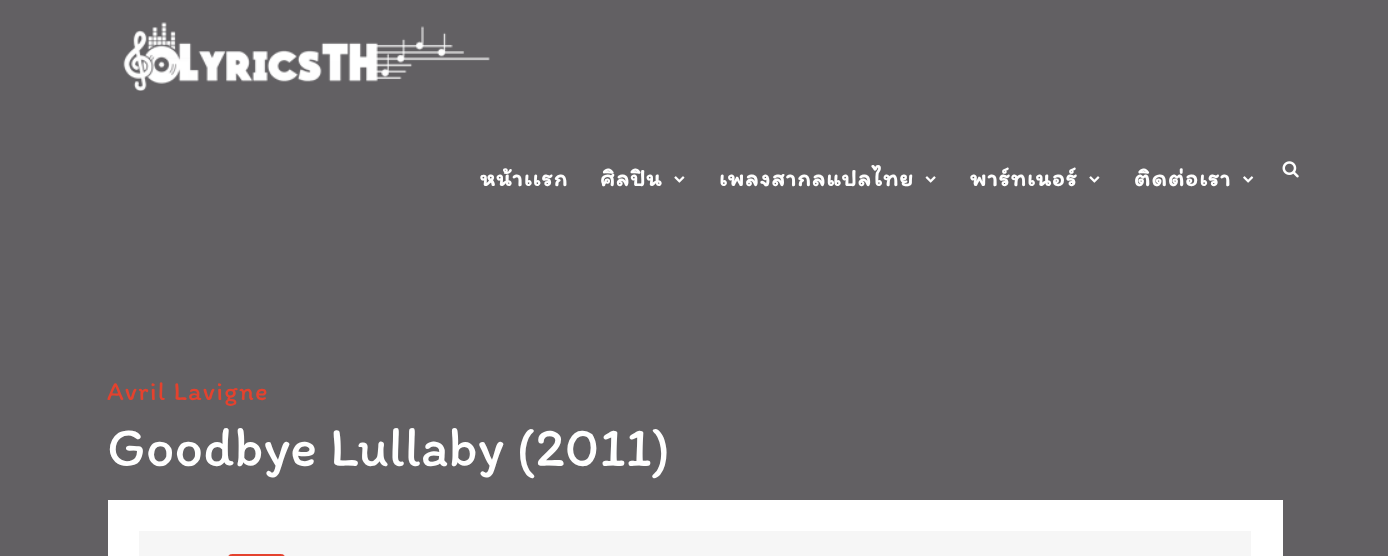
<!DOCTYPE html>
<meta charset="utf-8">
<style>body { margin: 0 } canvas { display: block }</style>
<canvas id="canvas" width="1388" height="556"></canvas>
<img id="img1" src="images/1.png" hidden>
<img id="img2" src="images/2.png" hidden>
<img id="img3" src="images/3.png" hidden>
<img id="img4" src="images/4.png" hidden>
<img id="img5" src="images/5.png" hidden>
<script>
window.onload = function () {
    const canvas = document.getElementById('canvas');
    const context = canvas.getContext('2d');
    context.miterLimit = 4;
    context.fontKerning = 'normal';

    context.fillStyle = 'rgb(98, 96, 99)';
    context.fillRect(0, 0, 1388, 556);
    context.drawImage(document.getElementById('img1'), 123, 22, 367, 69);
    context.drawImage(document.getElementById('img2'), 674, 176, 11, 7);
    context.drawImage(document.getElementById('img3'), 925, 176, 11, 7);
    context.drawImage(document.getElementById('img2'), 1089, 176, 11, 7);
    context.drawImage(document.getElementById('img4'), 1243, 176, 11, 7);
    context.drawImage(document.getElementById('img5'), 1282, 161, 17, 17);
    context.fillStyle = 'rgb(255, 255, 255)';
    context.fillRect(108, 500, 1175, 56);
    context.fillStyle = 'rgb(246, 246, 246)';
    context.fillRect(139, 531, 1112, 25);
    context.fillStyle = 'rgb(228, 66, 46)';
    context.beginPath();
    context.roundRect(228.5, 554.5, 56, 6, 3.5);
    context.fill();
    context.strokeStyle = 'rgb(228, 66, 46)';
    context.stroke();
    context.letterSpacing = '1.25px';
    context.font = 'bold 23.75px Itim';
    context.fillStyle = 'rgb(255, 255, 255)';
    context.fillText('หน้าเเรก', 480, 186);
    context.fillText('ศิลปิน', 600, 186);
    context.fillText('เพลงสากลแปลไทย', 719, 186);
    context.fillText('พาร์ทเนอร์', 970, 186);
    context.fillText('ติดต่อเรา', 1134, 186);
    context.font = '26.25px Itim';
    context.fillStyle = 'rgb(228, 66, 46)';
    context.fillText('Avril Lavigne', 107, 400);
    context.letterSpacing = '0px';
    context.font = '56.25px Itim';
    context.fillStyle = 'rgb(255, 255, 255)';
    context.fillText('Goodbye Lullaby (2011)', 107, 466);
};
</script>
